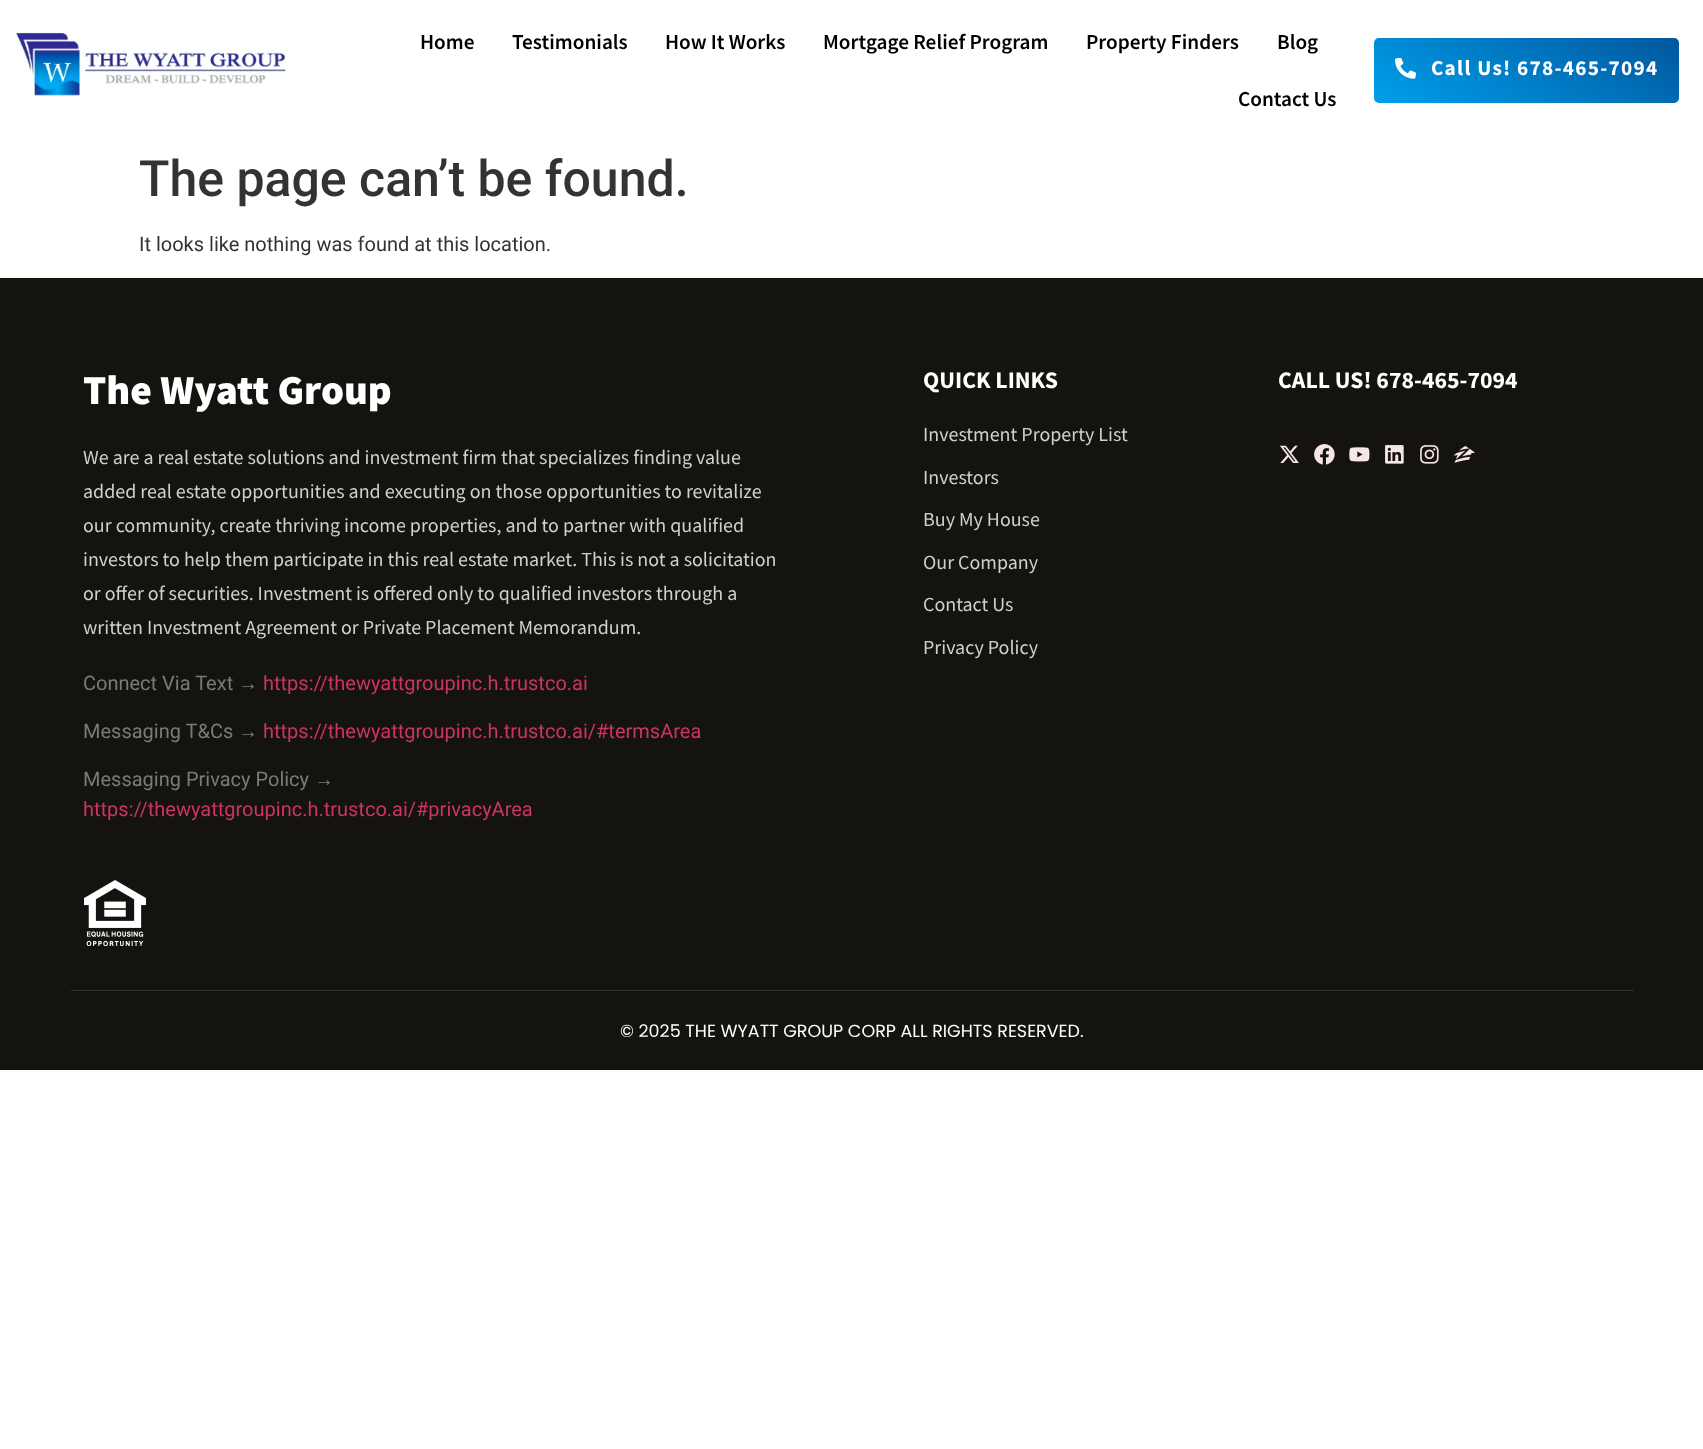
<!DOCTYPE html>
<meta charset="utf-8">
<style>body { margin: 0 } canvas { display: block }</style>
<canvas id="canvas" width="1703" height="1449"></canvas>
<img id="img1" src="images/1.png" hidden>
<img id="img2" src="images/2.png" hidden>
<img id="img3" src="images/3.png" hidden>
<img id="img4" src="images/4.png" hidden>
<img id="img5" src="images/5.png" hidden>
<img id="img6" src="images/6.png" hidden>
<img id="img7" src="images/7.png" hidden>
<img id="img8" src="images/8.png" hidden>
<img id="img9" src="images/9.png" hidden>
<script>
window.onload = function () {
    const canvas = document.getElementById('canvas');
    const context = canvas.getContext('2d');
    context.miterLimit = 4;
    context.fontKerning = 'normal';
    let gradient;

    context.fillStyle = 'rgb(255, 255, 255)';
    context.fillRect(0, 0, 1703, 1449);
    context.drawImage(document.getElementById('img1'), 16, 32, 270, 65);
    gradient = context.createLinearGradient(1578, -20, 1474, 160);
    gradient.addColorStop(0, 'rgb(0, 87, 158)');
    gradient.addColorStop(1, 'rgb(0, 159, 235)');
    context.fillStyle = gradient;
    context.beginPath();
    context.roundRect(1374, 38, 305, 65, 5);
    context.fill();
    context.drawImage(document.getElementById('img2'), 1395, 58, 21, 21);
    context.fillStyle = 'rgb(21, 19, 15)';
    context.fillRect(0, 278, 1703, 792);
    context.drawImage(document.getElementById('img3'), 84, 880, 62, 66);
    context.drawImage(document.getElementById('img4'), 1280, 445, 19, 18);
    context.drawImage(document.getElementById('img5'), 1314, 444, 21, 21);
    context.drawImage(document.getElementById('img6'), 1349, 447, 21, 15);
    context.drawImage(document.getElementById('img7'), 1385, 445, 19, 19);
    context.drawImage(document.getElementById('img8'), 1420, 445, 19, 19);
    context.drawImage(document.getElementById('img9'), 1454, 446, 21, 17);
    context.fillStyle = 'rgb(51, 49, 46)';
    context.fillRect(71, 990, 1563, 1);
    context.font = '600 21.25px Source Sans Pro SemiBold';
    context.fillStyle = 'rgb(0, 0, 0)';
    context.fillText('Home', 420, 49);
    context.fillText('Testimonials', 512, 49);
    context.fillText('How It Works', 665, 49);
    context.fillText('Mortgage Relief Program', 823, 49);
    context.fillText('Property Finders', 1086, 49);
    context.fillText('Blog', 1277, 49);
    context.fillText('Contact Us', 1238, 106);
    context.letterSpacing = '1.25px';
    context.font = 'bold 21.25px Source Sans Pro';
    context.fillStyle = 'rgb(255, 255, 255)';
    context.fillText('Call Us! 678-465-7094', 1431, 75);
    context.letterSpacing = '0px';
    context.font = '500 50px Roboto';
    context.fillStyle = 'rgb(51, 51, 51)';
    context.fillText('The page can’t be found.', 139, 196);
    context.font = '20px Roboto';
    context.fillText('It looks like nothing was found at this location.', 139, 251);
    context.font = '900 41.25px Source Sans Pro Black';
    context.fillStyle = 'rgb(255, 255, 255)';
    context.fillText('The Wyatt Group', 83, 404);
    context.font = '20px Source Sans Pro';
    context.fillStyle = 'rgb(208, 208, 207)';
    context.fillText('We are a real estate solutions and investment firm that specializes finding value', 83, 464);
    context.fillText('added real estate opportunities and executing on those opportunities to revitalize', 83, 498);
    context.fillText('our community, create thriving income properties, and to partner with qualified', 83, 532);
    context.fillText('investors to help them participate in this real estate market. This is not a solicitation', 83, 566);
    context.fillText('or offer of securities. Investment is offered only to qualified investors through a', 83, 600);
    context.fillText('written Investment Agreement or Private Placement Memorandum.', 83, 634);
    context.font = '20px Roboto';
    context.fillStyle = 'rgb(122, 122, 122)';
    context.fillText('Connect Via Text', 83, 690);
    context.font = '20px Liberation Sans';
    context.fillText('→', 238, 690);
    context.font = '20px Roboto';
    context.fillStyle = 'rgb(204, 51, 102)';
    context.fillText('https://thewyattgroupinc.h.trustco.ai', 263, 690);
    context.fillStyle = 'rgb(122, 122, 122)';
    context.fillText('Messaging T&Cs', 83, 738);
    context.font = '20px Liberation Sans';
    context.fillText('→', 238, 738);
    context.font = '20px Roboto';
    context.fillStyle = 'rgb(204, 51, 102)';
    context.fillText('https://thewyattgroupinc.h.trustco.ai/#termsArea', 263, 738);
    context.fillStyle = 'rgb(122, 122, 122)';
    context.fillText('Messaging Privacy Policy', 83, 786);
    context.font = '20px Liberation Sans';
    context.fillText('→', 314, 786);
    context.font = '20px Roboto';
    context.fillStyle = 'rgb(204, 51, 102)';
    context.fillText('https://thewyattgroupinc.h.trustco.ai/#privacyArea', 83, 816);
    context.font = 'bold 23.75px Source Sans Pro';
    context.fillStyle = 'rgb(255, 255, 255)';
    context.fillText('QUICK LINKS', 923, 388);
    context.font = '20px Source Sans Pro';
    context.fillStyle = 'rgb(208, 208, 207)';
    context.fillText('Investment Property List', 923, 441);
    context.fillText('Investors', 923, 484);
    context.fillText('Buy My House', 923, 526);
    context.fillText('Our Company', 923, 569);
    context.fillText('Contact Us', 923, 611);
    context.fillText('Privacy Policy', 923, 654);
    context.font = 'bold 23.75px Source Sans Pro';
    context.fillStyle = 'rgb(255, 255, 255)';
    context.fillText('CALL US! 678-465-7094', 1278, 388);
    context.font = '17.5px Poppins';
    context.fillText('© 2025 THE WYATT GROUP CORP ALL RIGHTS RESERVED.', 620, 1037);
};
</script>
